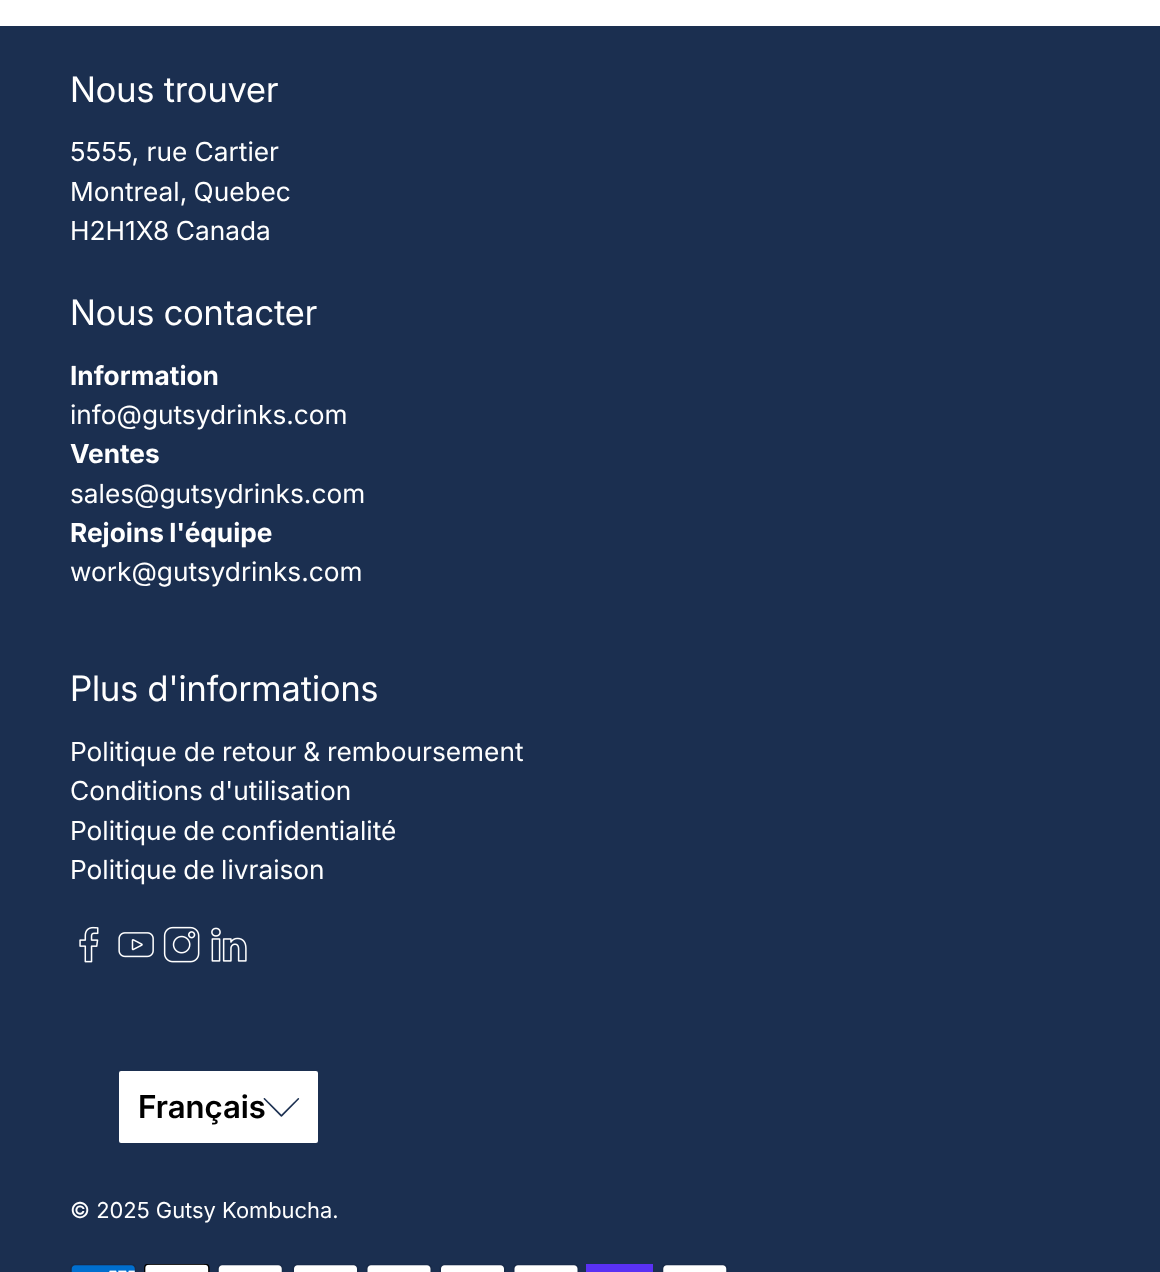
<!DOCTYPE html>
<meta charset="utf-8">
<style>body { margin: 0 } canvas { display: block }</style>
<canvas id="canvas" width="1160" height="1272"></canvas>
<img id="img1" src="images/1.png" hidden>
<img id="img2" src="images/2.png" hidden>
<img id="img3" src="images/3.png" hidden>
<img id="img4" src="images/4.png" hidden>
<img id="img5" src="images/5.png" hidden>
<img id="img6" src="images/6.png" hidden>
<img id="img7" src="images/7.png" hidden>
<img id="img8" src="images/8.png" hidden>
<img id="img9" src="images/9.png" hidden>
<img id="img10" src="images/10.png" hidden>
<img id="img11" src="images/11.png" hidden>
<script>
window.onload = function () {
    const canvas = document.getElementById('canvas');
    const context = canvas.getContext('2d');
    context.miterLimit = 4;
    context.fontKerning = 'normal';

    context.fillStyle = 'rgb(255, 255, 255)';
    context.fillRect(0, 0, 1160, 1272);
    context.fillStyle = 'rgb(27, 47, 80)';
    context.fillRect(0, 26, 1160, 1246);
    context.drawImage(document.getElementById('img1'), 79, 926, 20, 37);
    context.drawImage(document.getElementById('img2'), 118, 932, 36, 26);
    context.drawImage(document.getElementById('img3'), 163, 926, 37, 37);
    context.drawImage(document.getElementById('img4'), 211, 927, 36, 35);
    context.fillStyle = 'rgb(255, 255, 255)';
    context.beginPath();
    context.roundRect(118, 1070, 201, 74, 3);
    context.fill();
    context.strokeStyle = 'rgb(27, 47, 80)';
    context.lineWidth = 2;
    context.stroke();
    context.drawImage(document.getElementById('img5'), 263, 1098, 37, 19);
    context.drawImage(document.getElementById('img6'), 70, 1264, 66, 8);
    context.drawImage(document.getElementById('img7'), 144, 1264, 66, 8);
    context.drawImage(document.getElementById('img8'), 217, 1264, 66, 8);
    context.drawImage(document.getElementById('img9'), 292, 1264, 67, 8);
    context.drawImage(document.getElementById('img10'), 366, 1264, 66, 8);
    context.drawImage(document.getElementById('img9'), 439, 1264, 67, 8);
    context.drawImage(document.getElementById('img10'), 513, 1264, 66, 8);
    context.fillStyle = 'rgb(90, 49, 244)';
    context.fillRect(586, 1264, 67, 8);
    context.drawImage(document.getElementById('img11'), 662, 1264, 66, 8);
    context.font = '35px Inter';
    context.fillStyle = 'rgb(255, 255, 255)';
    context.fillText('Nous trouver', 70, 102);
    context.font = '26.25px "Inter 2"';
    context.fillText('5555, rue Cartier', 70, 161);
    context.wordSpacing = '-1px';
    context.fillText('Montreal, Quebec', 70, 201);
    context.fillText('H2H1X8 Canada', 70, 240);
    context.wordSpacing = '0px';
    context.font = '35px Inter';
    context.fillText('Nous contacter', 70, 325);
    context.font = 'bold 26.25px Inter';
    context.fillText('Information', 70, 385);
    context.font = '26.25px "Inter 2"';
    context.fillText('info@gutsydrinks.com', 70, 424);
    context.font = 'bold 26.25px Inter';
    context.fillText('Ventes', 70, 463);
    context.font = '26.25px "Inter 2"';
    context.fillText('sales@gutsydrinks.com', 70, 503);
    context.wordSpacing = '-1px';
    context.font = 'bold 26.25px Inter';
    context.fillText('Rejoins l\'équipe', 70, 542);
    context.wordSpacing = '0px';
    context.font = '26.25px "Inter 2"';
    context.fillText('work@gutsydrinks.com', 70, 581);
    context.font = '35px Inter';
    context.fillText('Plus d\'informations', 70, 701);
    context.wordSpacing = '-0.5px';
    context.font = '26.25px "Inter 2"';
    context.fillText('Politique de retour & remboursement', 70, 761);
    context.wordSpacing = '-1px';
    context.fillText('Conditions d\'utilisation', 70, 800);
    context.fillText('Politique de confidentialité', 70, 840);
    context.fillText('Politique de livraison', 70, 879);
    context.wordSpacing = '0px';
    context.font = '600 31.5px Inter';
    context.fillStyle = 'rgb(0, 0, 0)';
    context.fillText('Français', 138, 1118);
    context.font = '21.9px "Inter 2"';
    context.fillStyle = 'rgb(255, 255, 255)';
    context.fillText('© 2025 Gutsy Kombucha.', 70, 1218);
};
</script>
